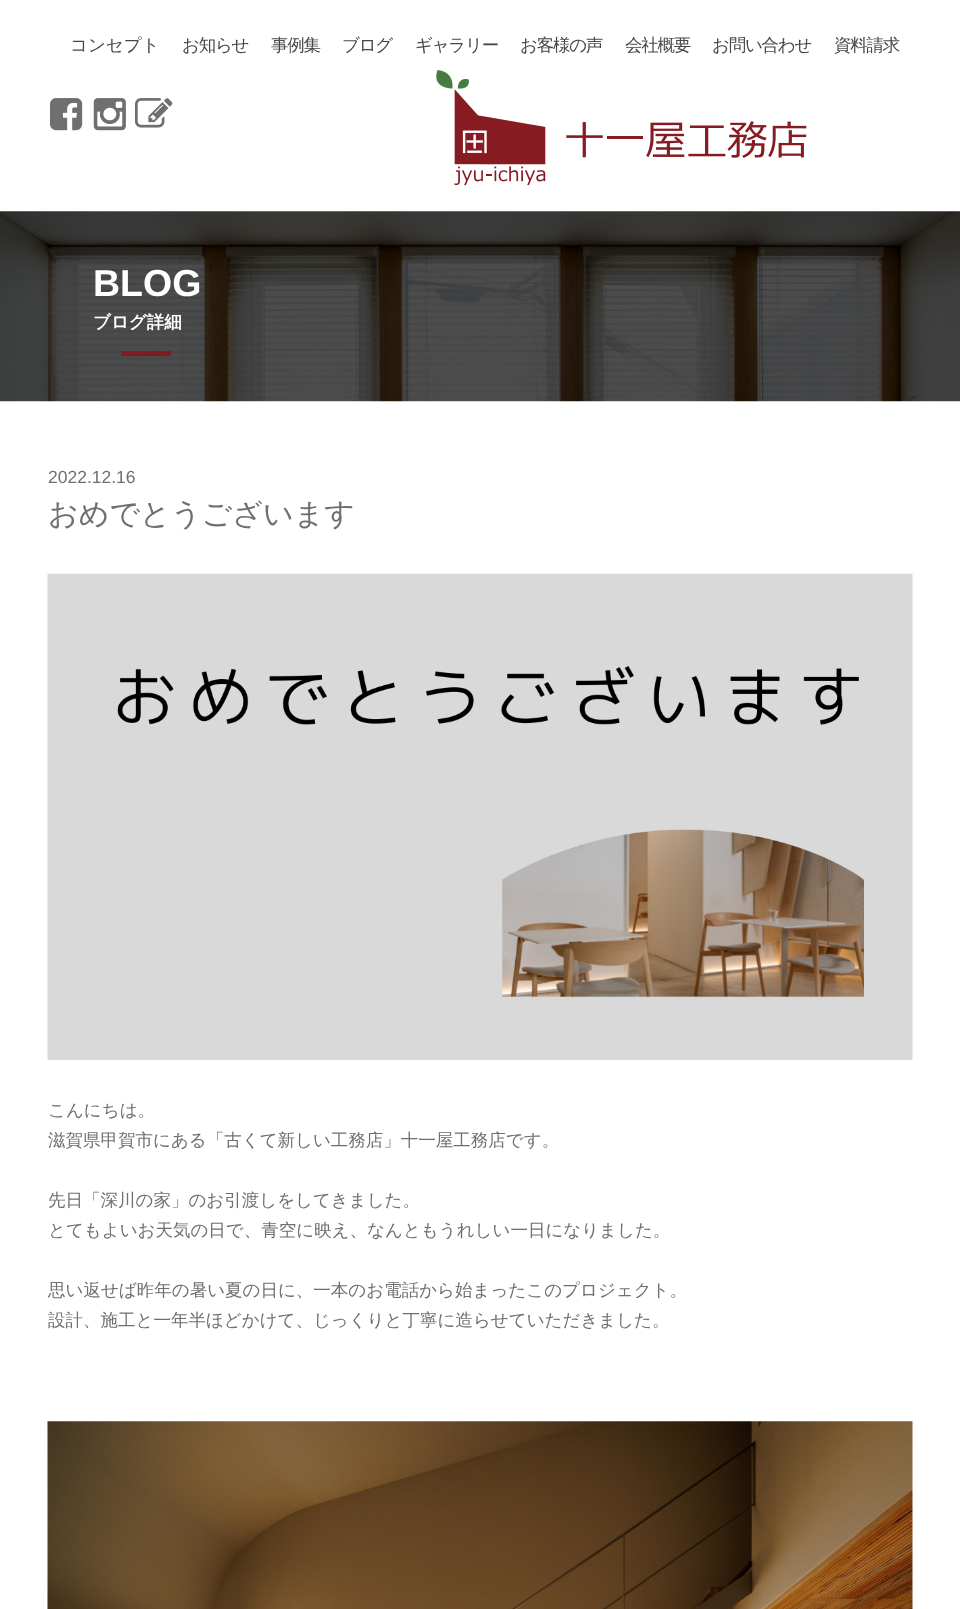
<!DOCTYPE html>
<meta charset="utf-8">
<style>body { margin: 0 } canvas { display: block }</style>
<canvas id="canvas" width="960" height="1609"></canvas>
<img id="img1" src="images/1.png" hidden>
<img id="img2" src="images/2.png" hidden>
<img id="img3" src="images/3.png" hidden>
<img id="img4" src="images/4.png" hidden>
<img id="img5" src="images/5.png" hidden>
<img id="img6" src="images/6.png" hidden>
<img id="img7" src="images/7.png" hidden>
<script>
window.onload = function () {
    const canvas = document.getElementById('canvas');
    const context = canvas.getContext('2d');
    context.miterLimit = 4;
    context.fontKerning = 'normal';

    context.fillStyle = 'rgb(255, 255, 255)';
    context.fillRect(0, 0, 960, 1609);
    context.drawImage(document.getElementById('img1'), 50, 98, 33, 33);
    context.drawImage(document.getElementById('img2'), 93, 98, 33, 33);
    context.drawImage(document.getElementById('img3'), 135, 98, 38, 30);
    context.drawImage(document.getElementById('img4'), 436, 70, 371, 116);
    context.drawImage(document.getElementById('img5'), 0, 211, 960, 191);
    context.fillStyle = 'rgb(128, 28, 33)';
    context.fillRect(121, 351, 50, 5);
    context.drawImage(document.getElementById('img6'), 47, 573, 866, 487);
    context.drawImage(document.getElementById('img7'), 47, 1421, 866, 188);
    context.font = '500 17.5px WenQuanYi Zen Hei';
    context.fillStyle = 'rgb(72, 72, 72)';
    context.fillText('コンセプト', 70, 51);
    context.letterSpacing = '-1.25px';
    context.fillText('お知らせ', 182, 51);
    context.fillText('事例集', 271, 51);
    context.fillText('ブログ', 342, 51);
    context.fillText('ギャラリー', 415, 51);
    context.fillText('お客様の声', 520, 51);
    context.fillText('会社概要', 625, 51);
    context.fillText('お問い合わせ', 712, 51);
    context.fillText('資料請求', 834, 51);
    context.letterSpacing = '0px';
    context.font = 'bold 37.5px Liberation Sans';
    context.fillStyle = 'rgb(255, 255, 255)';
    context.fillText('BLOG', 93, 296);
    context.font = 'bold 17.5px WenQuanYi Zen Hei';
    context.fillText('ブログ詳細', 93, 328);
    context.font = '17.5px Liberation Sans';
    context.fillStyle = 'rgb(111, 111, 111)';
    context.fillText('2022.12.16', 48, 483);
    context.font = '500 30px WenQuanYi Zen Hei';
    context.fillText('おめでとうございます', 48, 524);
    context.font = '500 17.5px WenQuanYi Zen Hei';
    context.fillText('こんにちは。', 48, 1116);
    context.fillText('滋賀県甲賀市にある「古くて新しい工務店」十一屋工務店です。', 48, 1146);
    context.fillText('先日「深川の家」のお引渡しをしてきました。', 48, 1206);
    context.fillText('とてもよいお天気の日で、青空に映え、なんともうれしい一日になりました。', 48, 1236);
    context.fillText('思い返せば昨年の暑い夏の日に、一本のお電話から始まったこのプロジェクト。', 48, 1296);
    context.fillText('設計、施工と一年半ほどかけて、じっくりと丁寧に造らせていただきました。', 48, 1326);
};
</script>
